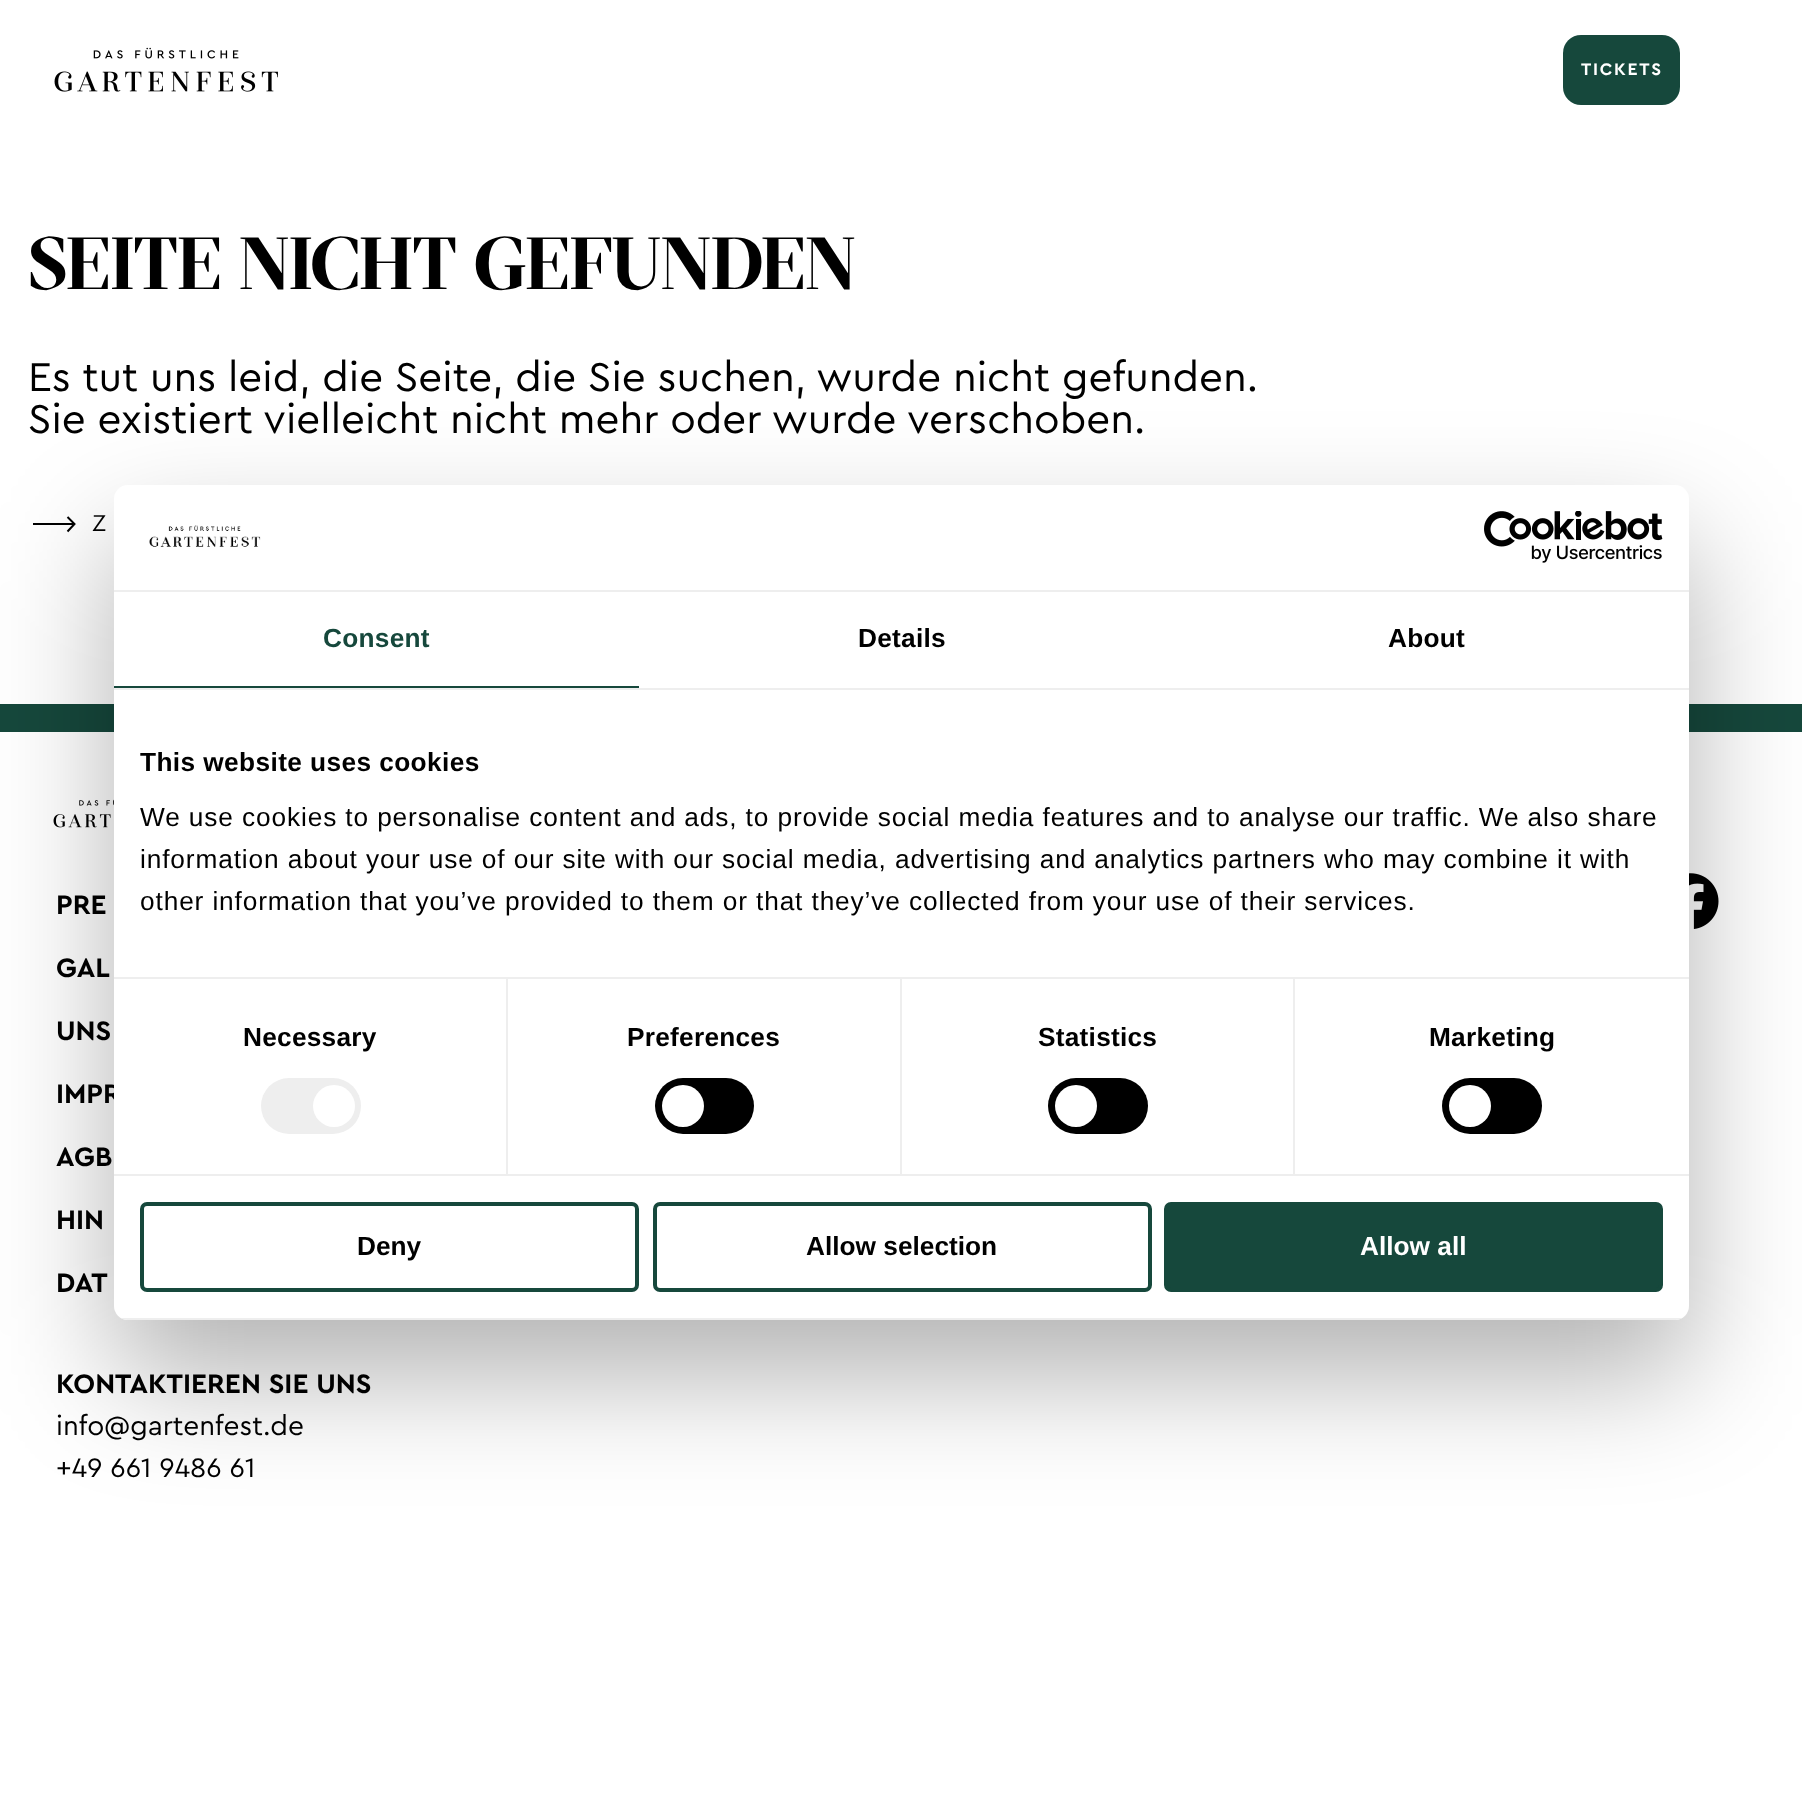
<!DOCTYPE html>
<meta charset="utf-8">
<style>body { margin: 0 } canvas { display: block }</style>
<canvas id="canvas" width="1802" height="1802"></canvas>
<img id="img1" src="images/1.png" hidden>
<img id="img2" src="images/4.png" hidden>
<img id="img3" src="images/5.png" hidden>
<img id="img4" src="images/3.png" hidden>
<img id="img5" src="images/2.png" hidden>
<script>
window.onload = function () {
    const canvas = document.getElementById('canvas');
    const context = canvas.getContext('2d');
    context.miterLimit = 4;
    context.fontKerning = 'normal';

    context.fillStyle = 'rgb(255, 255, 255)';
    context.fillRect(0, 0, 1802, 1802);
    context.drawImage(document.getElementById('img1'), 54, 47, 224, 45);
    context.fillStyle = 'rgb(22, 72, 60)';
    context.beginPath();
    context.roundRect(1563, 35, 117, 70, 18);
    context.fill();
    context.fillStyle = 'rgb(0, 0, 0)';
    context.fillRect(33, 523, 41, 2);
    context.beginPath();
    context.moveTo(67.5, 517);
    context.lineTo(74.5, 524);
    context.lineTo(67.5, 531.5);
    context.strokeStyle = 'rgb(0, 0, 0)';
    context.lineWidth = 2;
    context.stroke();
    context.fillStyle = 'rgb(22, 72, 60)';
    context.fillRect(0, 704, 1802, 28);
    context.drawImage(document.getElementById('img2'), 53, 799, 61, 29);
    context.drawImage(document.getElementById('img3'), 1689, 873, 30, 56);
    context.fillStyle = 'rgba(0, 0, 0, 0.3)';
    context.filter = 'blur(59.5px)';
    context.beginPath();
    context.roundRect(114, 541, 1575, 835, 14);
    context.fill();
    context.filter = 'none';
    context.letterSpacing = '1.75px';
    context.font = 'bold 17.5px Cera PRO';
    context.fillStyle = 'rgb(255, 255, 255)';
    context.fillText('TICKETS', 1581, 75);
    context.letterSpacing = '0px';
    context.font = 'bold 73.5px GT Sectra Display';
    context.fillStyle = 'rgb(0, 0, 0)';
    context.fillText('SEITE NICHT GEFUNDEN', 28, 289);
    context.font = '42px Cera PRO';
    context.fillText('Es tut uns leid, die Seite, die Sie suchen, wurde nicht gefunden.', 28, 391);
    context.fillText('Sie existiert vielleicht nicht mehr oder wurde verschoben.', 28, 433);
    context.font = '24px Cera PRO';
    context.fillText('Z', 92, 531);
    context.font = 'bold 28px Cera PRO';
    context.fillText('PRE', 56, 914);
    context.fillText('GAL', 56, 977);
    context.fillText('UNS', 56, 1040);
    context.fillText('IMPR', 56, 1103);
    context.fillStyle = 'rgb(255, 255, 255)';
    context.beginPath();
    context.roundRect(114, 485, 1575, 835, 14);
    context.fill();
    context.fillStyle = 'rgb(22, 72, 60)';
    context.beginPath();
    context.roundRect(1166, 1204, 495, 86, 5);
    context.fill();
    context.strokeStyle = 'rgb(22, 72, 60)';
    context.lineWidth = 4;
    context.stroke();
    context.font = 'bold 26.25px Liberation Sans';
    context.fillStyle = 'rgb(255, 255, 255)';
    context.fillText('Allow all', 1360, 1255);
    context.beginPath();
    context.roundRect(655, 1204, 495, 86, 5);
    context.stroke();
    context.fillStyle = 'rgb(0, 0, 0)';
    context.fillText('Allow selection', 806, 1255);
    context.beginPath();
    context.roundRect(142, 1204, 495, 86, 5);
    context.stroke();
    context.fillText('Deny', 357, 1255);
    context.save();
    context.beginPath();
    context.roundRect(114, 485, 1575, 835, 14);
    context.clip();
    context.fillStyle = 'rgb(238, 238, 238)';
    context.fillRect(114, 1318, 1575, 2);
    context.restore();
    context.beginPath();
    context.roundRect(1442, 1078, 100, 56, 28);
    context.fill();
    context.fillStyle = 'rgb(255, 255, 255)';
    context.beginPath();
    context.arc(1470, 1106, 21, 0, 2 * Math.PI);
    context.fill();
    context.fillStyle = 'rgb(0, 0, 0)';
    context.beginPath();
    context.roundRect(1048, 1078, 100, 56, 28);
    context.fill();
    context.fillStyle = 'rgb(255, 255, 255)';
    context.beginPath();
    context.arc(1076, 1106, 21, 0, 2 * Math.PI);
    context.fill();
    context.fillStyle = 'rgb(0, 0, 0)';
    context.beginPath();
    context.roundRect(655, 1078, 99, 56, 28);
    context.fill();
    context.fillStyle = 'rgb(255, 255, 255)';
    context.beginPath();
    context.arc(683, 1106, 21, 0, 2 * Math.PI);
    context.fill();
    context.fillStyle = 'rgb(238, 238, 238)';
    context.beginPath();
    context.roundRect(261, 1078, 100, 56, 28);
    context.fill();
    context.fillStyle = 'rgb(255, 255, 255)';
    context.beginPath();
    context.arc(334, 1106, 21, 0, 2 * Math.PI);
    context.fill();
    context.letterSpacing = '0.88px';
    context.font = '26.25px Liberation Sans';
    context.fillStyle = 'rgb(0, 0, 0)';
    context.fillText('other information that you’ve provided to them or that they’ve collected from your use of their services.', 140, 910);
    context.fillText('information about your use of our site with our social media, advertising and analytics partners who may combine it with', 140, 868);
    context.fillText('We use cookies to personalise content and ads, to provide social media features and to analyse our traffic. We also share', 140, 826);
    context.letterSpacing = '0.4px';
    context.font = 'bold 26.25px Liberation Sans';
    context.fillText('This website uses cookies', 140, 771);
    context.fillStyle = 'rgb(238, 238, 238)';
    context.fillRect(1293, 978, 2, 196);
    context.fillRect(900, 978, 2, 196);
    context.fillRect(506, 978, 2, 196);
    context.fillRect(114, 977, 1575, 2);
    context.letterSpacing = '0.25px';
    context.fillStyle = 'rgb(0, 0, 0)';
    context.fillText('About', 1388, 647);
    context.fillText('Details', 858, 647);
    context.fillStyle = 'rgb(22, 72, 60)';
    context.fillText('Consent', 323, 647);
    context.fillRect(114, 686, 525, 2);
    context.fillStyle = 'rgb(238, 238, 238)';
    context.fillRect(114, 688, 1575, 2);
    context.fillStyle = 'rgb(0, 0, 0)';
    context.fillText('Marketing', 1429, 1046);
    context.fillText('Statistics', 1038, 1046);
    context.fillText('Preferences', 627, 1046);
    context.fillText('Necessary', 243, 1046);
    context.fillStyle = 'rgb(238, 238, 238)';
    context.fillRect(114, 1174, 1575, 2);
    context.drawImage(document.getElementById('img4'), 1484, 511, 179, 52);
    context.drawImage(document.getElementById('img5'), 149, 525, 112, 22);
    context.fillRect(114, 590, 1575, 2);
    context.letterSpacing = '0px';
    context.font = 'bold 28px Cera PRO';
    context.fillStyle = 'rgb(0, 0, 0)';
    context.fillText('AGB', 56, 1166);
    context.fillText('HIN', 56, 1229);
    context.fillText('DAT', 56, 1292);
    context.fillText('KONTAKTIEREN SIE UNS', 56, 1393);
    context.font = '28px Cera PRO';
    context.fillText('info@gartenfest.de', 56, 1435);
    context.fillText('+49 661 9486 61', 56, 1477);
};
</script>
